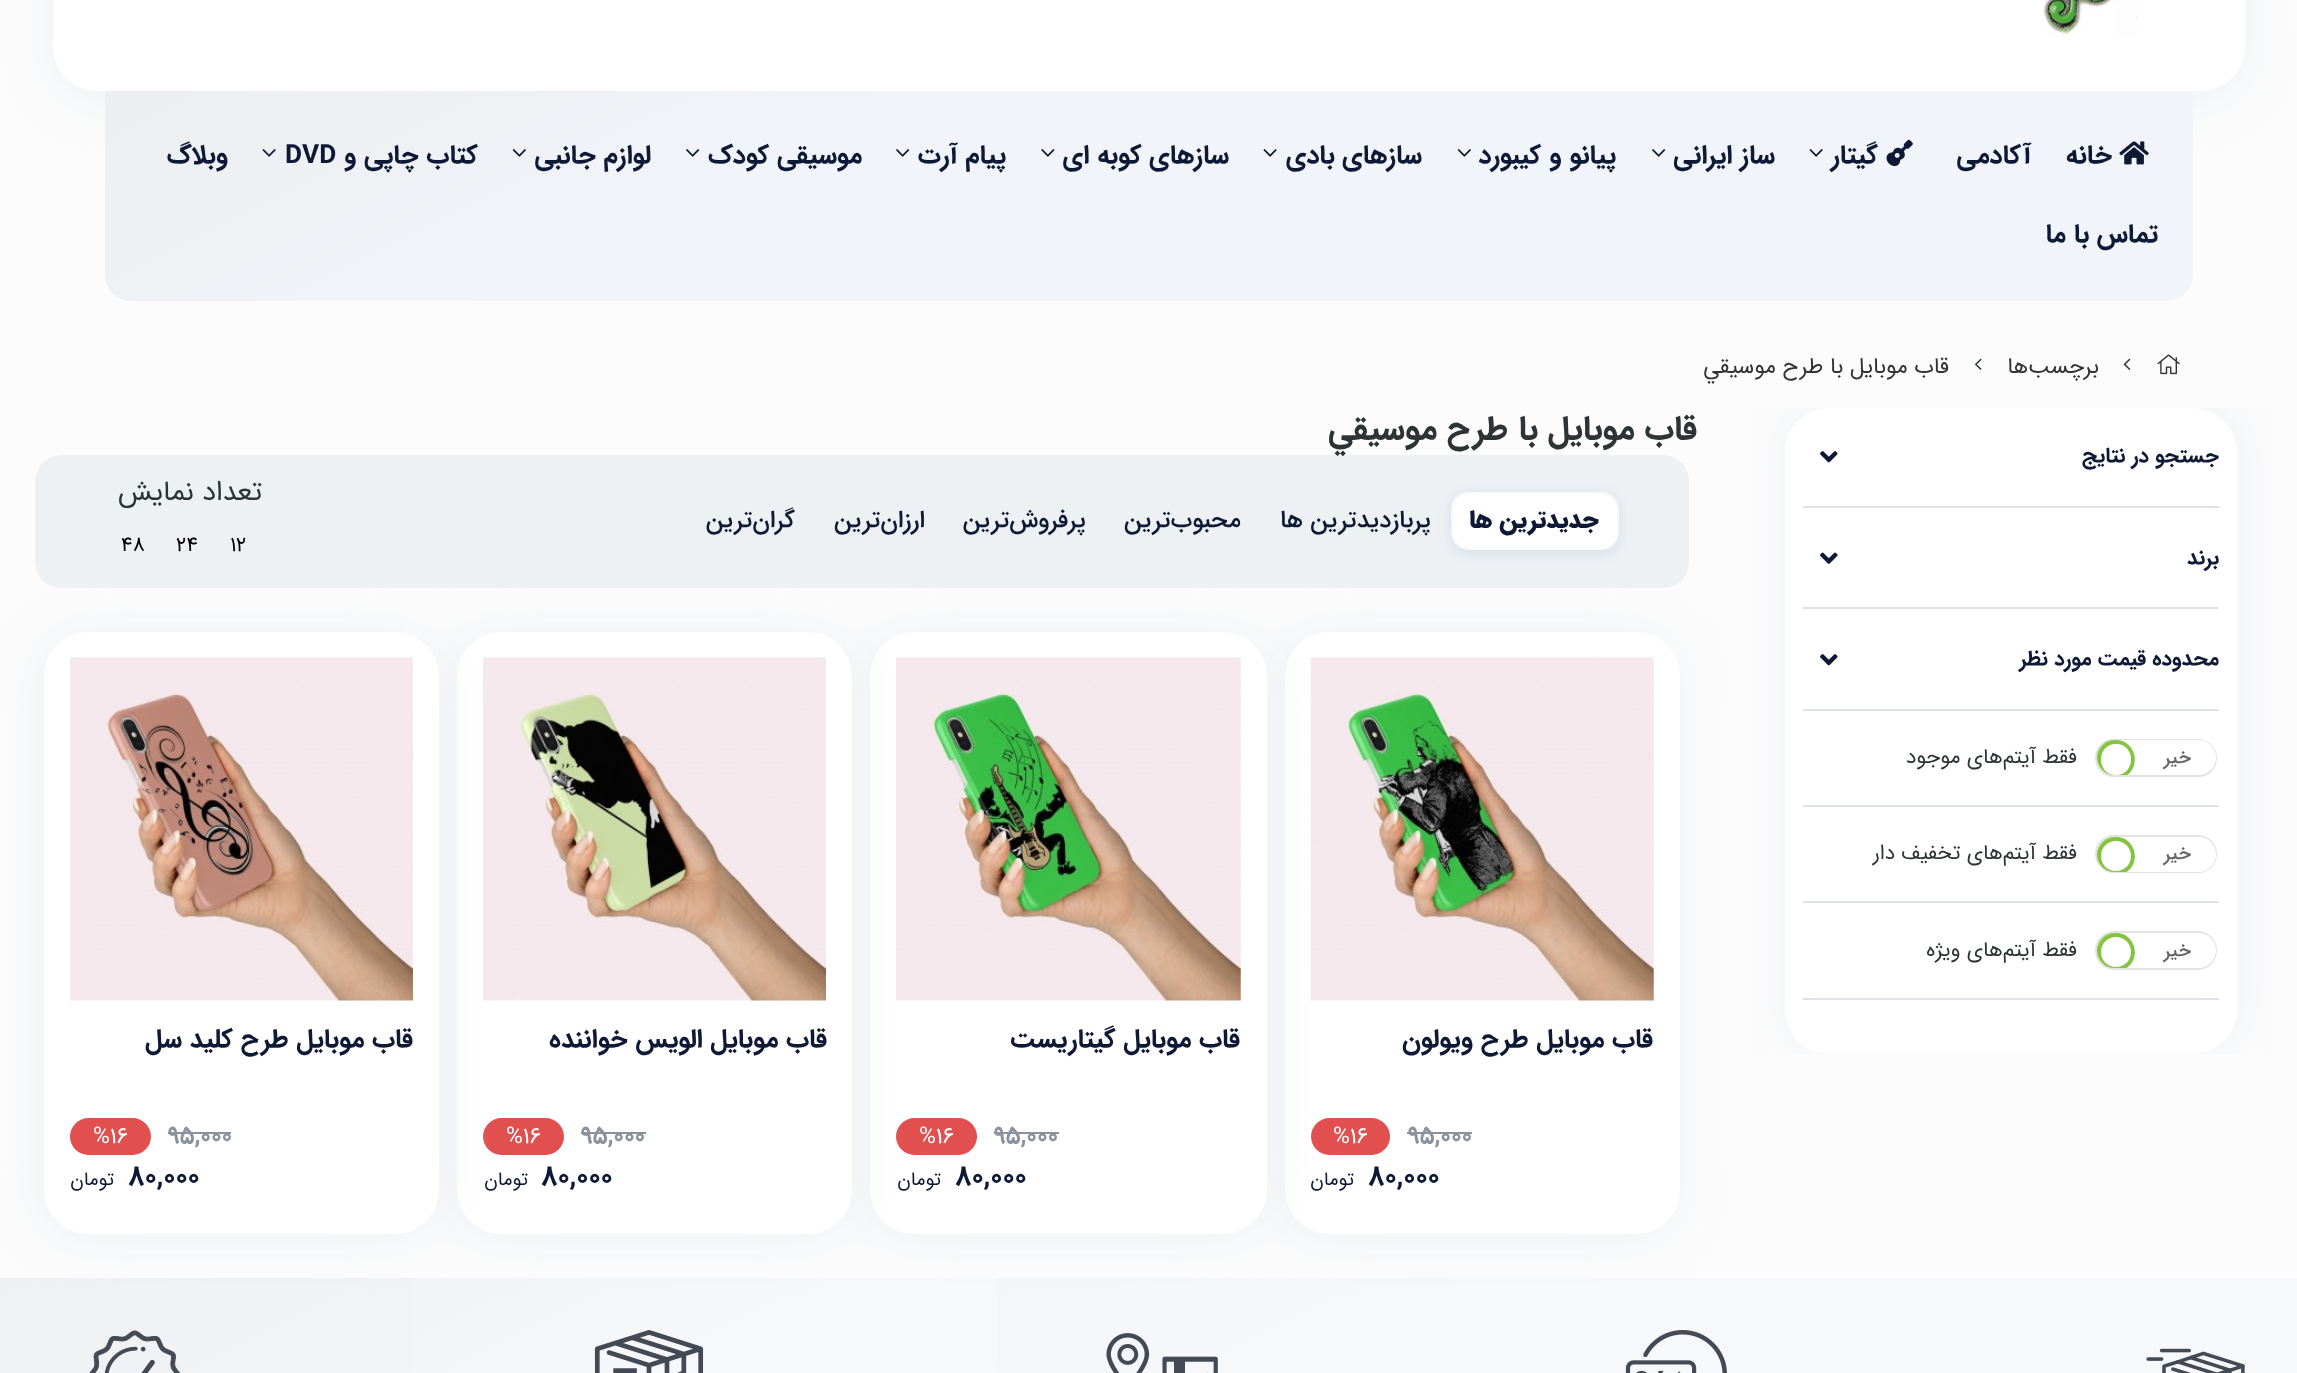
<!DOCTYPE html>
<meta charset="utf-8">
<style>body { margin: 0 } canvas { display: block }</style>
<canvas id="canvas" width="2297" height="1373"></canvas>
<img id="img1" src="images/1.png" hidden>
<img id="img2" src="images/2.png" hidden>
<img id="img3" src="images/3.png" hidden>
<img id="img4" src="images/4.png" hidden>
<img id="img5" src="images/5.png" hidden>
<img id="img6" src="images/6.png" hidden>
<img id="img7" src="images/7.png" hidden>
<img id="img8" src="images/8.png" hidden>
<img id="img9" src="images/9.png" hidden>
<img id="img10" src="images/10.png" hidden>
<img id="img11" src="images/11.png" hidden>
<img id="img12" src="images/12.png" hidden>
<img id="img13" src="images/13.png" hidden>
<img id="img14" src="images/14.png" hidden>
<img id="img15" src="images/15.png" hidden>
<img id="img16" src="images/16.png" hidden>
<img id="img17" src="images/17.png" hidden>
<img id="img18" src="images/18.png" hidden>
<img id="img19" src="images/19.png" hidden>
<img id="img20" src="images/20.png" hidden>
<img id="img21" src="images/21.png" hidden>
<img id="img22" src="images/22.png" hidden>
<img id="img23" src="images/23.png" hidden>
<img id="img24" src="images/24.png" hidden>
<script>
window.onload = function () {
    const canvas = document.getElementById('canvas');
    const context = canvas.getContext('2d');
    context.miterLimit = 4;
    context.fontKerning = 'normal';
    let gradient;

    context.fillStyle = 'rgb(252, 252, 252)';
    context.fillRect(0, 0, 2297, 1373);
    context.fillStyle = 'rgb(237, 240, 245)';
    context.filter = 'blur(26px)';
    context.beginPath();
    context.roundRect(53, -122, 2192, 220, 44);
    context.fill();
    context.filter = 'none';
    context.fillStyle = 'rgb(255, 255, 255)';
    context.beginPath();
    context.roundRect(53, -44, 2192, 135, 44);
    context.fill();
    context.drawImage(document.getElementById('img1'), 2043, 0, 95, 38);
    gradient = context.createLinearGradient(1396, 695, 835, -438);
    gradient.addColorStop(0.6, 'rgb(241, 244, 248)');
    gradient.addColorStop(1, 'rgb(234, 236, 238)');
    context.fillStyle = gradient;
    context.beginPath();
    context.roundRect(105, 91, 2088, 210, [0, 0, 26, 26]);
    context.fill();
    context.drawImage(document.getElementById('img2'), 2119, 141, 30, 24);
    context.drawImage(document.getElementById('img3'), 1886, 139, 27, 27);
    context.drawImage(document.getElementById('img4'), 1809, 149, 14, 8);
    context.drawImage(document.getElementById('img5'), 1652, 149, 14, 8);
    context.drawImage(document.getElementById('img6'), 1457, 149, 14, 8);
    context.drawImage(document.getElementById('img4'), 1263, 149, 14, 8);
    context.drawImage(document.getElementById('img7'), 1041, 149, 14, 8);
    context.drawImage(document.getElementById('img5'), 896, 149, 14, 8);
    context.drawImage(document.getElementById('img8'), 686, 149, 14, 8);
    context.drawImage(document.getElementById('img9'), 512, 149, 14, 8);
    context.drawImage(document.getElementById('img10'), 262, 149, 14, 8);
    context.drawImage(document.getElementById('img11'), 2157, 354, 23, 21);
    context.drawImage(document.getElementById('img12'), 2123, 358, 8, 12);
    context.drawImage(document.getElementById('img13'), 1975, 358, 7, 12);
    context.save();
    context.beginPath();
    context.rect(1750, 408, 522, 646);
    context.clip();
    context.fillStyle = 'rgb(237, 240, 245)';
    context.filter = 'blur(26px)';
    context.beginPath();
    context.roundRect(1789, 404, 451, 646, 44);
    context.fill();
    context.filter = 'none';
    context.restore();
    context.fillStyle = 'rgb(255, 255, 255)';
    context.beginPath();
    context.roundRect(1785, 408, 452, 646, 44);
    context.fill();
    context.drawImage(document.getElementById('img14'), 1820, 451, 18, 12);
    context.fillStyle = 'rgb(223, 225, 232)';
    context.fillRect(1803, 506, 416, 2);
    context.drawImage(document.getElementById('img15'), 1820, 552, 18, 12);
    context.fillRect(1803, 607, 416, 2);
    context.drawImage(document.getElementById('img14'), 1820, 654, 18, 12);
    context.fillRect(1803, 709, 416, 2);
    context.beginPath();
    context.roundRect(2096, 740, 120, 36, 18);
    context.strokeStyle = 'rgb(226, 226, 226)';
    context.lineWidth = 2;
    context.stroke();
    context.fillStyle = 'rgb(133, 196, 65)';
    context.beginPath();
    context.roundRect(2097, 740, 19, 35, [17.5, 0, 0, 17.5]);
    context.fill();
    context.fillStyle = 'rgb(255, 255, 255)';
    context.beginPath();
    context.roundRect(2116, 740, 100, 35, [0, 17.5, 17.5, 0]);
    context.fill();
    context.save();
    context.beginPath();
    context.roundRect(2097, 740, 119, 35, 17.5);
    context.clip();
    context.beginPath();
    context.roundRect(2097, 740, 38, 39, 19);
    context.fill();
    context.restore();
    context.fillStyle = 'rgb(133, 196, 65)';
    context.beginPath();
    context.moveTo(2116, 740);
    context.bezierCurveTo(2106, 740, 2097.5, 748, 2097, 758);
    context.bezierCurveTo(2097.5, 767.5, 2105, 775, 2114.5, 775);
    context.lineTo(2127.5, 775);
    context.bezierCurveTo(2141.5, 764, 2134.5, 740, 2116, 740);
    context.closePath();
    context.moveTo(2116, 744);
    context.bezierCurveTo(2136, 744, 2136, 775, 2116, 775);
    context.bezierCurveTo(2096, 775, 2096, 744, 2116, 744);
    context.closePath();
    context.fill('evenodd');
    context.fillStyle = 'rgb(223, 225, 232)';
    context.fillRect(1803, 805, 416, 2);
    context.beginPath();
    context.roundRect(2096, 836, 120, 36, 18);
    context.stroke();
    context.fillStyle = 'rgb(133, 196, 65)';
    context.beginPath();
    context.roundRect(2097, 837, 19, 35, [17.5, 0, 0, 17.5]);
    context.fill();
    context.fillStyle = 'rgb(255, 255, 255)';
    context.beginPath();
    context.roundRect(2116, 837, 100, 35, [0, 17.5, 17.5, 0]);
    context.fill();
    context.save();
    context.beginPath();
    context.roundRect(2097, 837, 119, 35, 17.5);
    context.clip();
    context.beginPath();
    context.arc(2116, 856, 19, 0, 2 * Math.PI);
    context.fill();
    context.restore();
    context.fillStyle = 'rgb(133, 196, 65)';
    context.beginPath();
    context.moveTo(2116, 837);
    context.bezierCurveTo(2106, 837, 2097.5, 845, 2097, 855);
    context.bezierCurveTo(2097.5, 864.5, 2105, 872, 2114.5, 872);
    context.lineTo(2126.5, 872);
    context.bezierCurveTo(2142, 862, 2135, 837, 2116, 837);
    context.closePath();
    context.moveTo(2116, 841);
    context.bezierCurveTo(2107.5, 841, 2101, 847.5, 2101, 856);
    context.bezierCurveTo(2101, 864.5, 2107.5, 871, 2116, 871);
    context.bezierCurveTo(2124.5, 871, 2131, 864.5, 2131, 856);
    context.bezierCurveTo(2131, 847.5, 2124.5, 841, 2116, 841);
    context.closePath();
    context.fill('evenodd');
    context.fillStyle = 'rgb(223, 225, 232)';
    context.fillRect(1803, 901, 416, 2);
    context.beginPath();
    context.roundRect(2096, 932, 120, 37, 18.5);
    context.stroke();
    context.fillStyle = 'rgb(133, 196, 65)';
    context.beginPath();
    context.roundRect(2097, 933, 19, 35, [17.5, 0, 0, 17.5]);
    context.fill();
    context.fillStyle = 'rgb(255, 255, 255)';
    context.beginPath();
    context.roundRect(2116, 933, 100, 35, [0, 17.5, 17.5, 0]);
    context.fill();
    context.save();
    context.beginPath();
    context.roundRect(2097, 933, 119, 35, 17.5);
    context.clip();
    context.beginPath();
    context.arc(2116, 952, 19, 0, 2 * Math.PI);
    context.fill();
    context.restore();
    context.fillStyle = 'rgb(133, 196, 65)';
    context.beginPath();
    context.moveTo(2116, 933);
    context.bezierCurveTo(2106, 933, 2097.5, 941, 2097, 951);
    context.bezierCurveTo(2097.5, 960.5, 2105, 968, 2114.5, 968);
    context.lineTo(2126.5, 968);
    context.bezierCurveTo(2142, 958, 2135, 933, 2116, 933);
    context.closePath();
    context.moveTo(2116, 937);
    context.bezierCurveTo(2107.5, 937, 2101, 943.5, 2101, 952);
    context.bezierCurveTo(2101, 960.5, 2107.5, 967, 2116, 967);
    context.bezierCurveTo(2124.5, 967, 2131, 960.5, 2131, 952);
    context.bezierCurveTo(2131, 943.5, 2124.5, 937, 2116, 937);
    context.closePath();
    context.fill('evenodd');
    context.fillStyle = 'rgb(223, 225, 232)';
    context.fillRect(1803, 998, 416, 2);
    context.fillStyle = 'rgb(238, 241, 244)';
    context.beginPath();
    context.roundRect(35, 455, 1654, 133, 26);
    context.fill();
    context.fillStyle = 'rgba(13, 60, 95, 0.1)';
    context.filter = 'blur(7px)';
    context.beginPath();
    context.roundRect(1451, 495, 168, 58, 18);
    context.fill();
    context.filter = 'none';
    context.fillStyle = 'rgb(255, 255, 255)';
    context.beginPath();
    context.roundRect(1452, 493, 166, 56, 17);
    context.fill();
    context.strokeStyle = 'rgb(248, 249, 250)';
    context.stroke();
    gradient = context.createLinearGradient(1603, 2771, 572, 687);
    gradient.addColorStop(0.6, 'rgb(246, 248, 251)');
    gradient.addColorStop(1, 'rgb(235, 237, 240)');
    context.fillStyle = gradient;
    context.fillRect(0, 1278, 2297, 95);
    context.fillStyle = 'rgb(237, 240, 245)';
    context.filter = 'blur(26px)';
    context.beginPath();
    context.roundRect(1281, 635, 396, 602, 44);
    context.fill();
    context.filter = 'none';
    context.fillStyle = 'rgb(255, 255, 255)';
    context.beginPath();
    context.roundRect(1285, 632, 395, 602, 44);
    context.fill();
    context.drawImage(document.getElementById('img16'), 1310, 657, 344, 344);
    context.fillStyle = 'rgb(138, 146, 156)';
    context.fillRect(1407, 1132, 65, 2);
    context.fillStyle = 'rgb(225, 79, 79)';
    context.beginPath();
    context.roundRect(1311, 1118, 79, 37, 18.5);
    context.fill();
    gradient = context.createLinearGradient(1413, 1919, 814, 709);
    gradient.addColorStop(0.6, 'rgb(246, 248, 251)');
    gradient.addColorStop(1, 'rgb(235, 237, 240)');
    context.fillStyle = gradient;
    context.fillRect(414, 1278, 583, 95);
    context.fillStyle = 'rgb(237, 240, 245)';
    context.filter = 'blur(26px)';
    context.beginPath();
    context.roundRect(866, 635, 398, 602, 44);
    context.fill();
    context.filter = 'none';
    context.fillStyle = 'rgb(255, 255, 255)';
    context.beginPath();
    context.roundRect(870, 632, 397, 602, 44);
    context.fill();
    context.drawImage(document.getElementById('img17'), 896, 657, 345, 344);
    context.fillStyle = 'rgb(138, 146, 156)';
    context.fillRect(994, 1132, 65, 2);
    context.fillStyle = 'rgb(225, 79, 79)';
    context.beginPath();
    context.roundRect(896, 1118, 81, 37, 18.5);
    context.fill();
    context.fillStyle = 'rgb(237, 240, 245)';
    context.filter = 'blur(26px)';
    context.beginPath();
    context.roundRect(453, 635, 396, 602, 44);
    context.fill();
    context.filter = 'none';
    context.fillStyle = 'rgb(255, 255, 255)';
    context.beginPath();
    context.roundRect(457, 632, 395, 602, 44);
    context.fill();
    context.drawImage(document.getElementById('img18'), 483, 657, 343, 344);
    context.fillStyle = 'rgb(138, 146, 156)';
    context.fillRect(581, 1132, 65, 2);
    context.fillStyle = 'rgb(225, 79, 79)';
    context.beginPath();
    context.roundRect(483, 1118, 81, 37, 18.5);
    context.fill();
    context.fillStyle = 'rgb(237, 240, 245)';
    context.filter = 'blur(26px)';
    context.beginPath();
    context.roundRect(40, 635, 396, 602, 44);
    context.fill();
    context.filter = 'none';
    context.fillStyle = 'rgb(255, 255, 255)';
    context.beginPath();
    context.roundRect(44, 632, 395, 602, 44);
    context.fill();
    context.drawImage(document.getElementById('img19'), 70, 657, 343, 344);
    context.fillStyle = 'rgb(138, 146, 156)';
    context.fillRect(168, 1132, 63, 2);
    context.fillStyle = 'rgb(225, 79, 79)';
    context.beginPath();
    context.roundRect(70, 1118, 81, 37, 18.5);
    context.fill();
    context.drawImage(document.getElementById('img20'), 2146, 1348, 99, 25);
    context.drawImage(document.getElementById('img21'), 1625, 1330, 102, 43);
    context.drawImage(document.getElementById('img22'), 1106, 1333, 112, 40);
    context.drawImage(document.getElementById('img23'), 594, 1330, 110, 43);
    context.drawImage(document.getElementById('img24'), 89, 1330, 91, 43);
    context.direction = 'rtl';
    context.font = 'bold 26.25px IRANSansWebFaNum';
    context.fillStyle = 'rgb(14, 25, 53)';
    context.fillText('خانه', 2112, 163);
    context.fillText('آکادمی', 2031, 163);
    context.fillText('گیتار', 1878, 163);
    context.fillText('ساز ایرانی', 1775, 163);
    context.fillText('پیانو و کیبورد', 1616, 163);
    context.fillText('سازهای بادی', 1422, 163);
    context.fillText('سازهای کوبه ای', 1229, 163);
    context.fillText('پیام آرت', 1006, 163);
    context.fillText('موسیقی کودک', 862, 163);
    context.fillText('لوازم جانبی', 651, 163);
    context.fillText('کتاب چاپی و', 478, 163);
    context.direction = 'ltr';
    context.fillText('DVD', 285, 163);
    context.direction = 'rtl';
    context.fillText('وبلاگ', 228, 163);
    context.fillText('تماس با ما', 2158, 242);
    context.font = '22.4px IRANSansWebFaNum';
    context.fillStyle = 'rgb(51, 51, 51)';
    context.fillText('برچسب‌ها', 2099, 373);
    context.fillText('قاب موبايل با طرح موسيقي', 1949, 373);
    context.font = 'bold 21px IRANSansWebFaNum';
    context.fillStyle = 'rgb(14, 25, 53)';
    context.fillText('جستجو در نتایج', 2219, 462);
    context.fillText('برند', 2219, 564);
    context.fillText('محدوده قیمت مورد نظر', 2219, 665);
    context.font = '500 19px IRANSansWebFaNum';
    context.fillStyle = 'rgb(102, 102, 102)';
    context.fillText('خیر', 2191, 763);
    context.font = '21px IRANSansWebFaNum';
    context.fillStyle = 'rgb(45, 52, 54)';
    context.fillText('فقط آیتم‌های موجود', 2077, 763);
    context.font = '500 19px IRANSansWebFaNum';
    context.fillStyle = 'rgb(102, 102, 102)';
    context.fillText('خیر', 2191, 859);
    context.font = '21px IRANSansWebFaNum';
    context.fillStyle = 'rgb(45, 52, 54)';
    context.fillText('فقط آیتم‌های تخفیف دار', 2077, 859);
    context.font = '500 19px IRANSansWebFaNum';
    context.fillStyle = 'rgb(102, 102, 102)';
    context.fillText('خیر', 2191, 956);
    context.font = '21px IRANSansWebFaNum';
    context.fillStyle = 'rgb(45, 52, 54)';
    context.fillText('فقط آیتم‌های ویژه', 2077, 956);
    context.font = 'bold 33.6px IRANSansWebFaNum';
    context.fillText('قاب موبايل با طرح موسيقي', 1697, 439);
    context.font = '900 24.5px IRANSansWebFaNum';
    context.fillStyle = 'rgb(14, 25, 53)';
    context.fillText('جدیدترین ها', 1599, 527);
    context.font = '500 24.5px IRANSansWebFaNum';
    context.fillText('پربازدیدترین ها', 1431, 527);
    context.fillText('محبوب‌‌ترین', 1241, 527);
    context.fillText('پرفروش‌ترین', 1086, 527);
    context.fillText('ارزان‌ترین', 925, 527);
    context.fillText('گران‌ترین', 795, 527);
    context.font = '28px IRANSansWebFaNum';
    context.fillStyle = 'rgb(45, 52, 54)';
    context.fillText('تعداد نمایش', 262, 500);
    context.direction = 'ltr';
    context.font = '21px IRANSansWebFaNum';
    context.fillStyle = 'rgb(0, 0, 0)';
    context.fillText('12', 230, 551);
    context.fillText('24', 176, 551);
    context.fillText('48', 121, 551);
    context.direction = 'rtl';
    context.font = 'bold 26.25px IRANSansWebFaNum';
    context.fillStyle = 'rgb(14, 25, 53)';
    context.fillText('قاب موبایل طرح ویولون', 1653, 1047);
    context.direction = 'ltr';
    context.font = 'bold 24.5px IRANSansWebFaNum';
    context.fillStyle = 'rgb(138, 146, 156)';
    context.fillText('95,000', 1408, 1143);
    context.font = '23px IRANSansWebFaNum';
    context.fillStyle = 'rgb(255, 255, 255)';
    context.fillText('%16', 1333, 1143);
    context.font = 'bold 28px IRANSansWebFaNum';
    context.fillStyle = 'rgb(14, 25, 53)';
    context.fillText('80,000', 1368, 1185);
    context.direction = 'rtl';
    context.font = '19px IRANSansWebFaNum';
    context.fillText('تومان', 1354, 1185);
    context.font = 'bold 26.25px IRANSansWebFaNum';
    context.fillText('قاب موبایل گیتاریست', 1240, 1047);
    context.direction = 'ltr';
    context.font = 'bold 24.5px IRANSansWebFaNum';
    context.fillStyle = 'rgb(138, 146, 156)';
    context.fillText('95,000', 994, 1143);
    context.font = '23px IRANSansWebFaNum';
    context.fillStyle = 'rgb(255, 255, 255)';
    context.fillText('%16', 919, 1143);
    context.font = 'bold 28px IRANSansWebFaNum';
    context.fillStyle = 'rgb(14, 25, 53)';
    context.fillText('80,000', 955, 1185);
    context.direction = 'rtl';
    context.font = '19px IRANSansWebFaNum';
    context.fillText('تومان', 941, 1185);
    context.font = 'bold 26.25px IRANSansWebFaNum';
    context.fillText('قاب موبایل الویس خواننده', 827, 1047);
    context.direction = 'ltr';
    context.font = 'bold 24.5px IRANSansWebFaNum';
    context.fillStyle = 'rgb(138, 146, 156)';
    context.fillText('95,000', 581, 1143);
    context.font = '23px IRANSansWebFaNum';
    context.fillStyle = 'rgb(255, 255, 255)';
    context.fillText('%16', 506, 1143);
    context.font = 'bold 28px IRANSansWebFaNum';
    context.fillStyle = 'rgb(14, 25, 53)';
    context.fillText('80,000', 541, 1185);
    context.direction = 'rtl';
    context.font = '19px IRANSansWebFaNum';
    context.fillText('تومان', 528, 1185);
    context.font = 'bold 26.25px IRANSansWebFaNum';
    context.fillText('قاب موبایل طرح کلید سل', 413, 1047);
    context.direction = 'ltr';
    context.font = 'bold 24.5px IRANSansWebFaNum';
    context.fillStyle = 'rgb(138, 146, 156)';
    context.fillText('95,000', 168, 1143);
    context.font = '23px IRANSansWebFaNum';
    context.fillStyle = 'rgb(255, 255, 255)';
    context.fillText('%16', 93, 1143);
    context.font = 'bold 28px IRANSansWebFaNum';
    context.fillStyle = 'rgb(14, 25, 53)';
    context.fillText('80,000', 128, 1185);
    context.direction = 'rtl';
    context.font = '19px IRANSansWebFaNum';
    context.fillText('تومان', 114, 1185);
};
</script>
